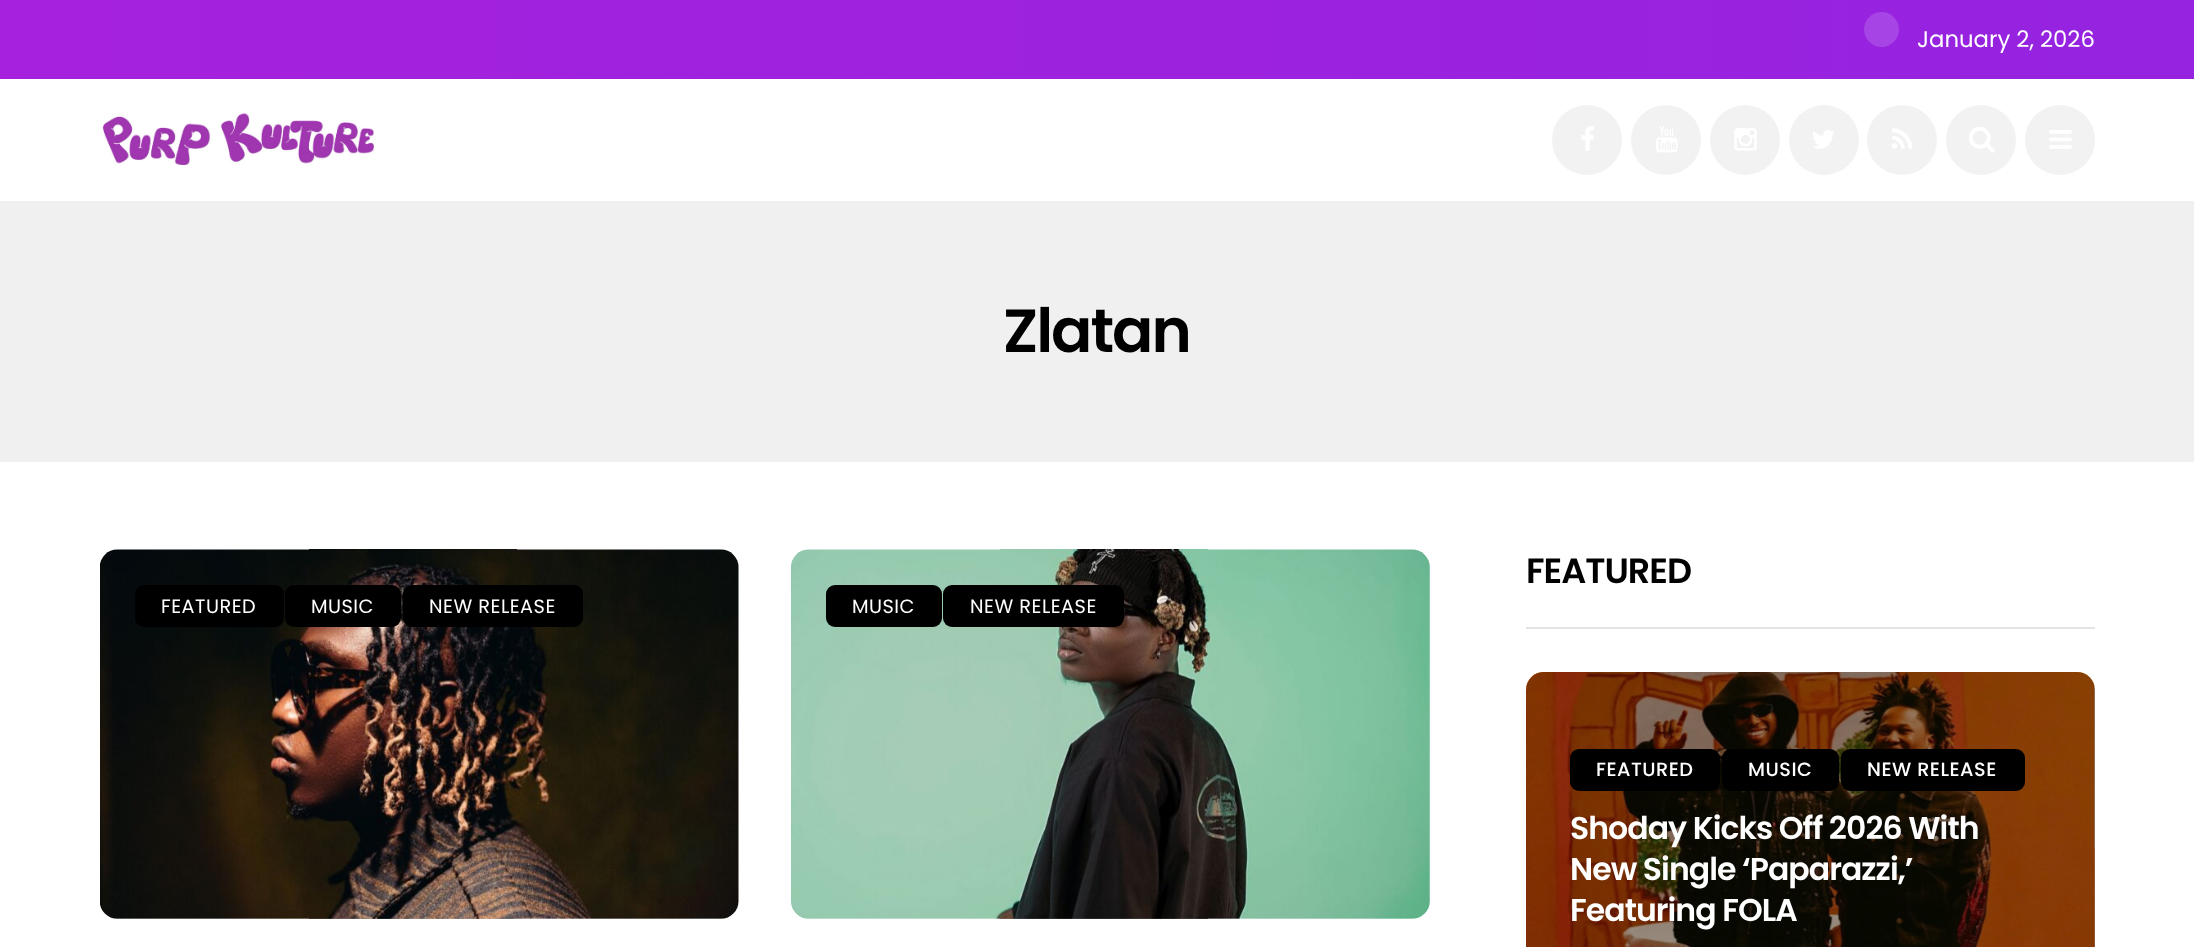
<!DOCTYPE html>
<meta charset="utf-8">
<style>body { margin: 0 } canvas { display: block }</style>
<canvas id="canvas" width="2194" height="947"></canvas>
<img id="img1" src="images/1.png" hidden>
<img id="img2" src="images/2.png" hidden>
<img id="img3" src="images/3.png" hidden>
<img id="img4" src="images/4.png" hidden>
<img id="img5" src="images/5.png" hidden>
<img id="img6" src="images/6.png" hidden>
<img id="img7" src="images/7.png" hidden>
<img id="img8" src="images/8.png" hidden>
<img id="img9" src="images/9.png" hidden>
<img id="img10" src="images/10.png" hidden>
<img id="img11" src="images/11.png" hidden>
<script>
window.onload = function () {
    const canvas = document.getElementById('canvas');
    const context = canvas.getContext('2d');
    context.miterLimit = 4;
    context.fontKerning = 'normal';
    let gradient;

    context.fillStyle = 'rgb(255, 255, 255)';
    context.fillRect(0, 0, 2194, 947);
    gradient = context.createLinearGradient(0, 39, 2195, 39);
    gradient.addColorStop(0, 'rgb(165, 33, 221)');
    gradient.addColorStop(1, 'rgb(149, 35, 224)');
    context.fillStyle = gradient;
    context.fillRect(0, 0, 2194, 79);
    context.fillStyle = 'rgb(167, 68, 229)';
    context.beginPath();
    context.arc(1881.5, 29.5, 17.5, 0, 2 * Math.PI);
    context.fill();
    context.drawImage(document.getElementById('img1'), 102, 112, 273, 54);
    context.fillStyle = 'rgb(242, 242, 242)';
    context.beginPath();
    context.arc(1587, 140, 35, 0, 2 * Math.PI);
    context.fill();
    context.drawImage(document.getElementById('img2'), 1581, 126, 13, 25);
    context.beginPath();
    context.arc(1666, 140, 35, 0, 2 * Math.PI);
    context.fill();
    context.drawImage(document.getElementById('img3'), 1656, 126, 22, 27);
    context.beginPath();
    context.arc(1745, 140, 35, 0, 2 * Math.PI);
    context.fill();
    context.drawImage(document.getElementById('img4'), 1734, 128, 23, 23);
    context.beginPath();
    context.arc(1824, 140, 35, 0, 2 * Math.PI);
    context.fill();
    context.drawImage(document.getElementById('img5'), 1813, 130, 22, 19);
    context.beginPath();
    context.arc(1902, 140, 35, 0, 2 * Math.PI);
    context.fill();
    context.drawImage(document.getElementById('img6'), 1892, 128, 21, 21);
    context.beginPath();
    context.arc(1981, 140, 35, 0, 2 * Math.PI);
    context.fill();
    context.drawImage(document.getElementById('img7'), 1969, 127, 26, 26);
    context.beginPath();
    context.arc(2060, 140, 35, 0, 2 * Math.PI);
    context.fill();
    context.drawImage(document.getElementById('img8'), 2049, 130, 23, 19);
    context.fillStyle = 'rgb(240, 240, 240)';
    context.fillRect(0, 201, 2194, 261);
    context.drawImage(document.getElementById('img9'), 100, 549, 639, 370);
    context.fillStyle = 'rgb(0, 0, 0)';
    context.beginPath();
    context.roundRect(135, 585, 149, 42, 9);
    context.fill();
    context.beginPath();
    context.roundRect(285, 585, 116, 42, 9);
    context.fill();
    context.beginPath();
    context.roundRect(403, 585, 180, 42, 9);
    context.fill();
    context.drawImage(document.getElementById('img10'), 791, 549, 639, 370);
    context.beginPath();
    context.roundRect(826, 585, 116, 42, 9);
    context.fill();
    context.beginPath();
    context.roundRect(943, 585, 181, 42, 9);
    context.fill();
    context.fillStyle = 'rgb(226, 227, 231)';
    context.fillRect(1526, 627, 569, 2);
    context.drawImage(document.getElementById('img11'), 1526, 672, 569, 275);
    context.fillStyle = 'rgba(0, 0, 0, 0.4)';
    context.beginPath();
    context.roundRect(1526, 672, 569, 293, 18);
    context.fill();
    context.fillStyle = 'rgb(0, 0, 0)';
    context.beginPath();
    context.roundRect(1570, 749, 150, 42, 9);
    context.fill();
    context.beginPath();
    context.roundRect(1722, 749, 117, 42, 9);
    context.fill();
    context.beginPath();
    context.roundRect(1841, 749, 184, 42, 9);
    context.fill();
    context.font = '22.75px Poppins';
    context.fillStyle = 'rgb(255, 255, 255)';
    context.fillText('January 2, 2026', 1917, 47);
    context.letterSpacing = '-2px';
    context.font = '600 61px Poppins';
    context.fillStyle = 'rgb(0, 0, 0)';
    context.fillText('Zlatan', 1003, 352);
    context.letterSpacing = '0.5px';
    context.font = '19.25px Poppins';
    context.fillStyle = 'rgb(255, 255, 255)';
    context.fillText('FEATURED', 161, 613);
    context.fillText('MUSIC', 311, 613);
    context.fillText('NEW RELEASE', 429, 613);
    context.fillText('MUSIC', 852, 613);
    context.fillText('NEW RELEASE', 970, 613);
    context.letterSpacing = '-1px';
    context.font = '600 35px Poppins';
    context.fillStyle = 'rgb(0, 0, 0)';
    context.fillText('FEATURED', 1526, 583);
    context.letterSpacing = '0.5px';
    context.font = '500 19.25px Poppins';
    context.fillStyle = 'rgb(255, 255, 255)';
    context.fillText('FEATURED', 1596, 776);
    context.fillText('MUSIC', 1748, 776);
    context.fillText('NEW RELEASE', 1867, 776);
    context.letterSpacing = '-0.95px';
    context.font = '600 31.5px Poppins';
    context.fillText('Shoday Kicks Off 2026 With', 1570, 839);
    context.fillText('New Single ‘Paparazzi,’', 1570, 880);
    context.fillText('Featuring FOLA', 1570, 921);
};
</script>
